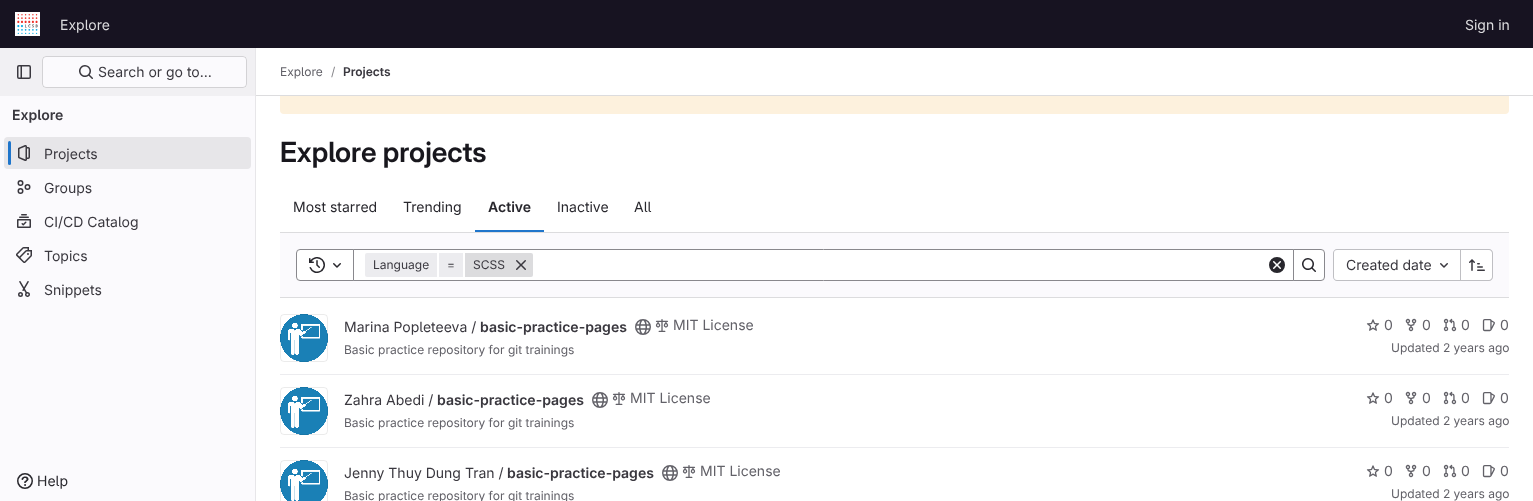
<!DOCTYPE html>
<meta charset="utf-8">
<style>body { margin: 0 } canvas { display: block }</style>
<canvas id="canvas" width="1533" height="501"></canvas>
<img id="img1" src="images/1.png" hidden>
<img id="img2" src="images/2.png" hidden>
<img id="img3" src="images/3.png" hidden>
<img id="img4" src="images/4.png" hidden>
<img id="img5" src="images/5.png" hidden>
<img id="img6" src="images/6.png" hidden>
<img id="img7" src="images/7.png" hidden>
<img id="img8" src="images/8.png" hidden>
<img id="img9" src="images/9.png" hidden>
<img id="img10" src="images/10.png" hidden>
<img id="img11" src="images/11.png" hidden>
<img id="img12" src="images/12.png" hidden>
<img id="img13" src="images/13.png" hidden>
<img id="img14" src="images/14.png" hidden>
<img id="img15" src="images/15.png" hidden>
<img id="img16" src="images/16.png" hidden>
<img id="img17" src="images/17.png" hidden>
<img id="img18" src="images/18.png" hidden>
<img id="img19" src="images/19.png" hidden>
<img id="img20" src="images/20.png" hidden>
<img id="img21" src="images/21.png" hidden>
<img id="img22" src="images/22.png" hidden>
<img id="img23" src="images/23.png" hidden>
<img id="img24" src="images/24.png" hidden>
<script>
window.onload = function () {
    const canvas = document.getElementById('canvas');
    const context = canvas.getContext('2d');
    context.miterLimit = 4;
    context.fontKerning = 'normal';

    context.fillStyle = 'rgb(255, 255, 255)';
    context.fillRect(0, 0, 1533, 501);
    context.fillStyle = 'rgb(253, 241, 221)';
    context.beginPath();
    context.roundRect(280, 39, 1229, 75, 4);
    context.fill();
    context.fillStyle = 'rgb(23, 19, 33)';
    context.fillRect(0, 0, 1533, 48);
    context.drawImage(document.getElementById('img1'), 15, 12, 25, 24);
    context.fillStyle = 'rgb(251, 250, 253)';
    context.fillRect(0, 96, 255, 405);
    context.fillStyle = 'rgb(231, 230, 233)';
    context.fillRect(255, 48, 1, 453);
    context.fillStyle = 'rgb(241, 240, 243)';
    context.fillRect(0, 48, 255, 48);
    context.drawImage(document.getElementById('img2'), 17, 65, 14, 14);
    context.fillStyle = 'rgb(251, 250, 253)';
    context.beginPath();
    context.roundRect(42, 56, 205, 32, 4);
    context.fill();
    context.beginPath();
    context.roundRect(42.5, 56.5, 204, 31, 3.5);
    context.strokeStyle = 'rgba(5, 5, 6, 0.16)';
    context.stroke();
    context.drawImage(document.getElementById('img3'), 79, 65, 14, 14);
    context.fillStyle = 'rgb(231, 230, 233)';
    context.beginPath();
    context.roundRect(4, 137, 247, 32, 4);
    context.fill();
    context.fillStyle = 'rgb(31, 117, 203)';
    context.beginPath();
    context.roundRect(8, 141, 3, 24, 1.5);
    context.fill();
    context.drawImage(document.getElementById('img4'), 18, 145, 12, 16);
    context.drawImage(document.getElementById('img5'), 17, 180, 14, 14);
    context.drawImage(document.getElementById('img6'), 17, 214, 14, 14);
    context.drawImage(document.getElementById('img7'), 16, 247, 16, 16);
    context.drawImage(document.getElementById('img8'), 18, 281, 12, 16);
    context.drawImage(document.getElementById('img9'), 17, 473, 16, 16);
    context.fillStyle = 'rgb(255, 255, 255)';
    context.fillRect(280, 48, 1229, 47);
    context.fillStyle = 'rgb(220, 220, 222)';
    context.fillRect(256, 95, 1277, 1);
    context.fillStyle = 'rgb(31, 117, 203)';
    context.fillRect(475, 230, 69, 2);
    context.fillStyle = 'rgb(251, 250, 253)';
    context.fillRect(280, 233, 1229, 64);
    context.fillStyle = 'rgb(220, 220, 222)';
    context.fillRect(280, 232, 1229, 1);
    context.fillRect(280, 297, 1229, 1);
    context.fillStyle = 'rgb(255, 255, 255)';
    context.beginPath();
    context.rect(353.5, 249.5, 940, 31);
    context.fill();
    context.strokeStyle = 'rgb(137, 136, 141)';
    context.stroke();
    context.beginPath();
    context.roundRect(296.5, 249.5, 57, 31, [3.5, 0, 0, 3.5]);
    context.fill();
    context.stroke();
    context.drawImage(document.getElementById('img10'), 309, 257, 16, 16);
    context.drawImage(document.getElementById('img11'), 333, 263, 8, 5);
    context.fillStyle = 'rgb(236, 236, 239)';
    context.beginPath();
    context.roundRect(365, 253, 72, 24, [2, 0, 0, 2]);
    context.fill();
    context.fillRect(439, 253, 24, 24);
    context.fillStyle = 'rgb(220, 220, 222)';
    context.beginPath();
    context.roundRect(465, 253, 68, 24, [0, 2, 2, 0]);
    context.fill();
    context.drawImage(document.getElementById('img12'), 516, 260, 10, 10);
    context.drawImage(document.getElementById('img13'), 1269, 257, 16, 16);
    context.fillStyle = 'rgb(255, 255, 255)';
    context.beginPath();
    context.roundRect(1293.5, 249.5, 31, 31, [0, 3.5, 3.5, 0]);
    context.fill();
    context.stroke();
    context.drawImage(document.getElementById('img14'), 1302, 258, 14, 14);
    context.beginPath();
    context.roundRect(1334, 250, 126, 30, [3, 0, 0, 3]);
    context.fill();
    context.fillStyle = 'rgb(191, 191, 195)';
    context.beginPath();
    context.moveTo(1337, 249);
    context.lineTo(1460, 249);
    context.lineTo(1460, 281);
    context.lineTo(1337, 281);
    context.bezierCurveTo(1335, 281, 1333, 279, 1333, 277);
    context.lineTo(1333, 253);
    context.bezierCurveTo(1333, 251, 1335, 249, 1337, 249);
    context.closePath();
    context.moveTo(1337, 250);
    context.lineTo(1460, 250);
    context.lineTo(1460, 280);
    context.lineTo(1337, 280);
    context.bezierCurveTo(1335, 280, 1334, 279, 1334, 277);
    context.lineTo(1334, 253);
    context.bezierCurveTo(1334, 251, 1335, 250, 1337, 250);
    context.closePath();
    context.fill('evenodd');
    context.drawImage(document.getElementById('img15'), 1440, 263, 8, 5);
    context.fillStyle = 'rgb(255, 255, 255)';
    context.beginPath();
    context.roundRect(1461, 250, 31, 30, [0, 3, 3, 0]);
    context.fill();
    context.fillStyle = 'rgb(191, 191, 195)';
    context.beginPath();
    context.moveTo(1461, 249);
    context.lineTo(1489, 249);
    context.bezierCurveTo(1491, 249, 1493, 251, 1493, 253);
    context.lineTo(1493, 277);
    context.bezierCurveTo(1493, 279, 1491, 281, 1489, 281);
    context.lineTo(1461, 281);
    context.closePath();
    context.moveTo(1461, 250);
    context.lineTo(1489, 250);
    context.bezierCurveTo(1490.5, 250, 1492, 251.5, 1492, 253);
    context.lineTo(1492, 277);
    context.bezierCurveTo(1492, 278.5, 1490.5, 280, 1489, 280);
    context.lineTo(1461, 280);
    context.closePath();
    context.fill('evenodd');
    context.fillRect(1460, 249, 1, 32);
    context.drawImage(document.getElementById('img16'), 1469, 259, 16, 12);
    context.fillStyle = 'rgb(236, 236, 239)';
    context.fillRect(280, 374, 1229, 1);
    context.drawImage(document.getElementById('img17'), 280, 314, 48, 48);
    context.beginPath();
    context.roundRect(280.5, 314.5, 47, 47, 3.5);
    context.strokeStyle = 'rgba(5, 5, 6, 0.08)';
    context.stroke();
    context.drawImage(document.getElementById('img18'), 635, 319, 16, 16);
    context.drawImage(document.getElementById('img19'), 655, 319, 14, 13);
    context.drawImage(document.getElementById('img20'), 1366, 319, 14, 12);
    context.drawImage(document.getElementById('img21'), 1405, 318, 12, 14);
    context.drawImage(document.getElementById('img22'), 1443, 318, 14, 14);
    context.drawImage(document.getElementById('img23'), 1482, 319, 13, 13);
    context.fillRect(280, 447, 1229, 1);
    context.drawImage(document.getElementById('img17'), 280, 387, 48, 48);
    context.beginPath();
    context.roundRect(280.5, 387.5, 47, 47, 3.5);
    context.stroke();
    context.drawImage(document.getElementById('img18'), 592, 392, 16, 16);
    context.drawImage(document.getElementById('img19'), 612, 392, 14, 13);
    context.drawImage(document.getElementById('img20'), 1366, 392, 14, 12);
    context.drawImage(document.getElementById('img21'), 1405, 391, 12, 14);
    context.drawImage(document.getElementById('img22'), 1443, 391, 14, 14);
    context.drawImage(document.getElementById('img23'), 1482, 392, 13, 13);
    context.drawImage(document.getElementById('img24'), 280, 460, 48, 41);
    context.beginPath();
    context.roundRect(280.5, 460.5, 47, 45, 3.5);
    context.stroke();
    context.drawImage(document.getElementById('img18'), 662, 465, 16, 16);
    context.drawImage(document.getElementById('img19'), 682, 465, 14, 13);
    context.drawImage(document.getElementById('img20'), 1366, 465, 14, 12);
    context.drawImage(document.getElementById('img21'), 1405, 464, 12, 14);
    context.drawImage(document.getElementById('img22'), 1443, 464, 14, 14);
    context.drawImage(document.getElementById('img23'), 1482, 465, 13, 13);
    context.font = '14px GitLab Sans';
    context.fillStyle = 'rgb(220, 220, 222)';
    context.fillText('Explore', 60, 30);
    context.fillText('Sign in', 1465, 30);
    context.fillStyle = 'rgb(58, 56, 63)';
    context.fillText('Search or go to…', 98, 77);
    context.font = '600 14px "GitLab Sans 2"';
    context.fillText('Explore', 12, 120);
    context.font = '14px GitLab Sans';
    context.fillText('Projects', 44, 159);
    context.fillText('Groups', 44, 193);
    context.fillText('CI/CD Catalog', 44, 227);
    context.fillText('Topics', 44, 261);
    context.fillText('Snippets', 44, 295);
    context.fillStyle = 'rgb(40, 39, 45)';
    context.fillText('Help', 37, 486);
    context.font = '12px GitLab Sans';
    context.fillStyle = 'rgb(98, 97, 104)';
    context.fillText('Explore', 280, 76);
    context.fillStyle = 'rgb(137, 136, 141)';
    context.fillText('/', 331, 76);
    context.font = '600 12px "GitLab Sans 2"';
    context.fillStyle = 'rgb(58, 56, 63)';
    context.fillText('Projects', 343, 76);
    context.font = '600 28px GitLab Sans';
    context.fillStyle = 'rgb(24, 23, 29)';
    context.fillText('Explore projects', 280, 162);
    context.font = '14px GitLab Sans';
    context.fillStyle = 'rgb(40, 39, 45)';
    context.fillText('Most starred', 293, 212);
    context.fillText('Trending', 403, 212);
    context.font = '600 14px "GitLab Sans 2"';
    context.fillText('Active', 488, 212);
    context.font = '14px GitLab Sans';
    context.fillText('Inactive', 557, 212);
    context.fillText('All', 634, 212);
    context.font = '12px GitLab Sans';
    context.fillStyle = 'rgb(58, 56, 63)';
    context.fillText('Language', 373, 269);
    context.fillText('=', 447, 269);
    context.fillText('SCSS', 473, 269);
    context.font = '14px GitLab Sans';
    context.fillText('Created date', 1346, 270);
    context.fillText('Marina Popleteeva /', 344, 332);
    context.font = '600 14px "GitLab Sans 2"';
    context.fillText('basic-practice-pages', 480, 332);
    context.font = '14px GitLab Sans';
    context.fillStyle = 'rgb(98, 97, 104)';
    context.fillText('MIT License', 673, 330);
    context.font = '12px GitLab Sans';
    context.fillText('Basic practice repository for git trainings', 344, 354);
    context.font = '14px GitLab Sans';
    context.fillText('0', 1384, 330);
    context.fillText('0', 1422, 330);
    context.fillText('0', 1461, 330);
    context.fillText('0', 1500, 330);
    context.font = '12px GitLab Sans';
    context.fillText('Updated 2 years ago', 1391, 352);
    context.font = '14px GitLab Sans';
    context.fillStyle = 'rgb(58, 56, 63)';
    context.fillText('Zahra Abedi /', 344, 405);
    context.font = '600 14px "GitLab Sans 2"';
    context.fillText('basic-practice-pages', 437, 405);
    context.font = '14px GitLab Sans';
    context.fillStyle = 'rgb(98, 97, 104)';
    context.fillText('MIT License', 630, 403);
    context.font = '12px GitLab Sans';
    context.fillText('Basic practice repository for git trainings', 344, 427);
    context.font = '14px GitLab Sans';
    context.fillText('0', 1384, 403);
    context.fillText('0', 1422, 403);
    context.fillText('0', 1461, 403);
    context.fillText('0', 1500, 403);
    context.font = '12px GitLab Sans';
    context.fillText('Updated 2 years ago', 1391, 425);
    context.font = '14px GitLab Sans';
    context.fillStyle = 'rgb(58, 56, 63)';
    context.fillText('Jenny Thuy Dung Tran /', 344, 478);
    context.font = '600 14px "GitLab Sans 2"';
    context.fillText('basic-practice-pages', 507, 478);
    context.font = '14px GitLab Sans';
    context.fillStyle = 'rgb(98, 97, 104)';
    context.fillText('MIT License', 700, 476);
    context.font = '12px GitLab Sans';
    context.fillText('Basic practice repository for git trainings', 344, 500);
    context.font = '14px GitLab Sans';
    context.fillText('0', 1384, 476);
    context.fillText('0', 1422, 476);
    context.fillText('0', 1461, 476);
    context.fillText('0', 1500, 476);
    context.font = '12px GitLab Sans';
    context.fillText('Updated 2 years ago', 1391, 498);
};
</script>
